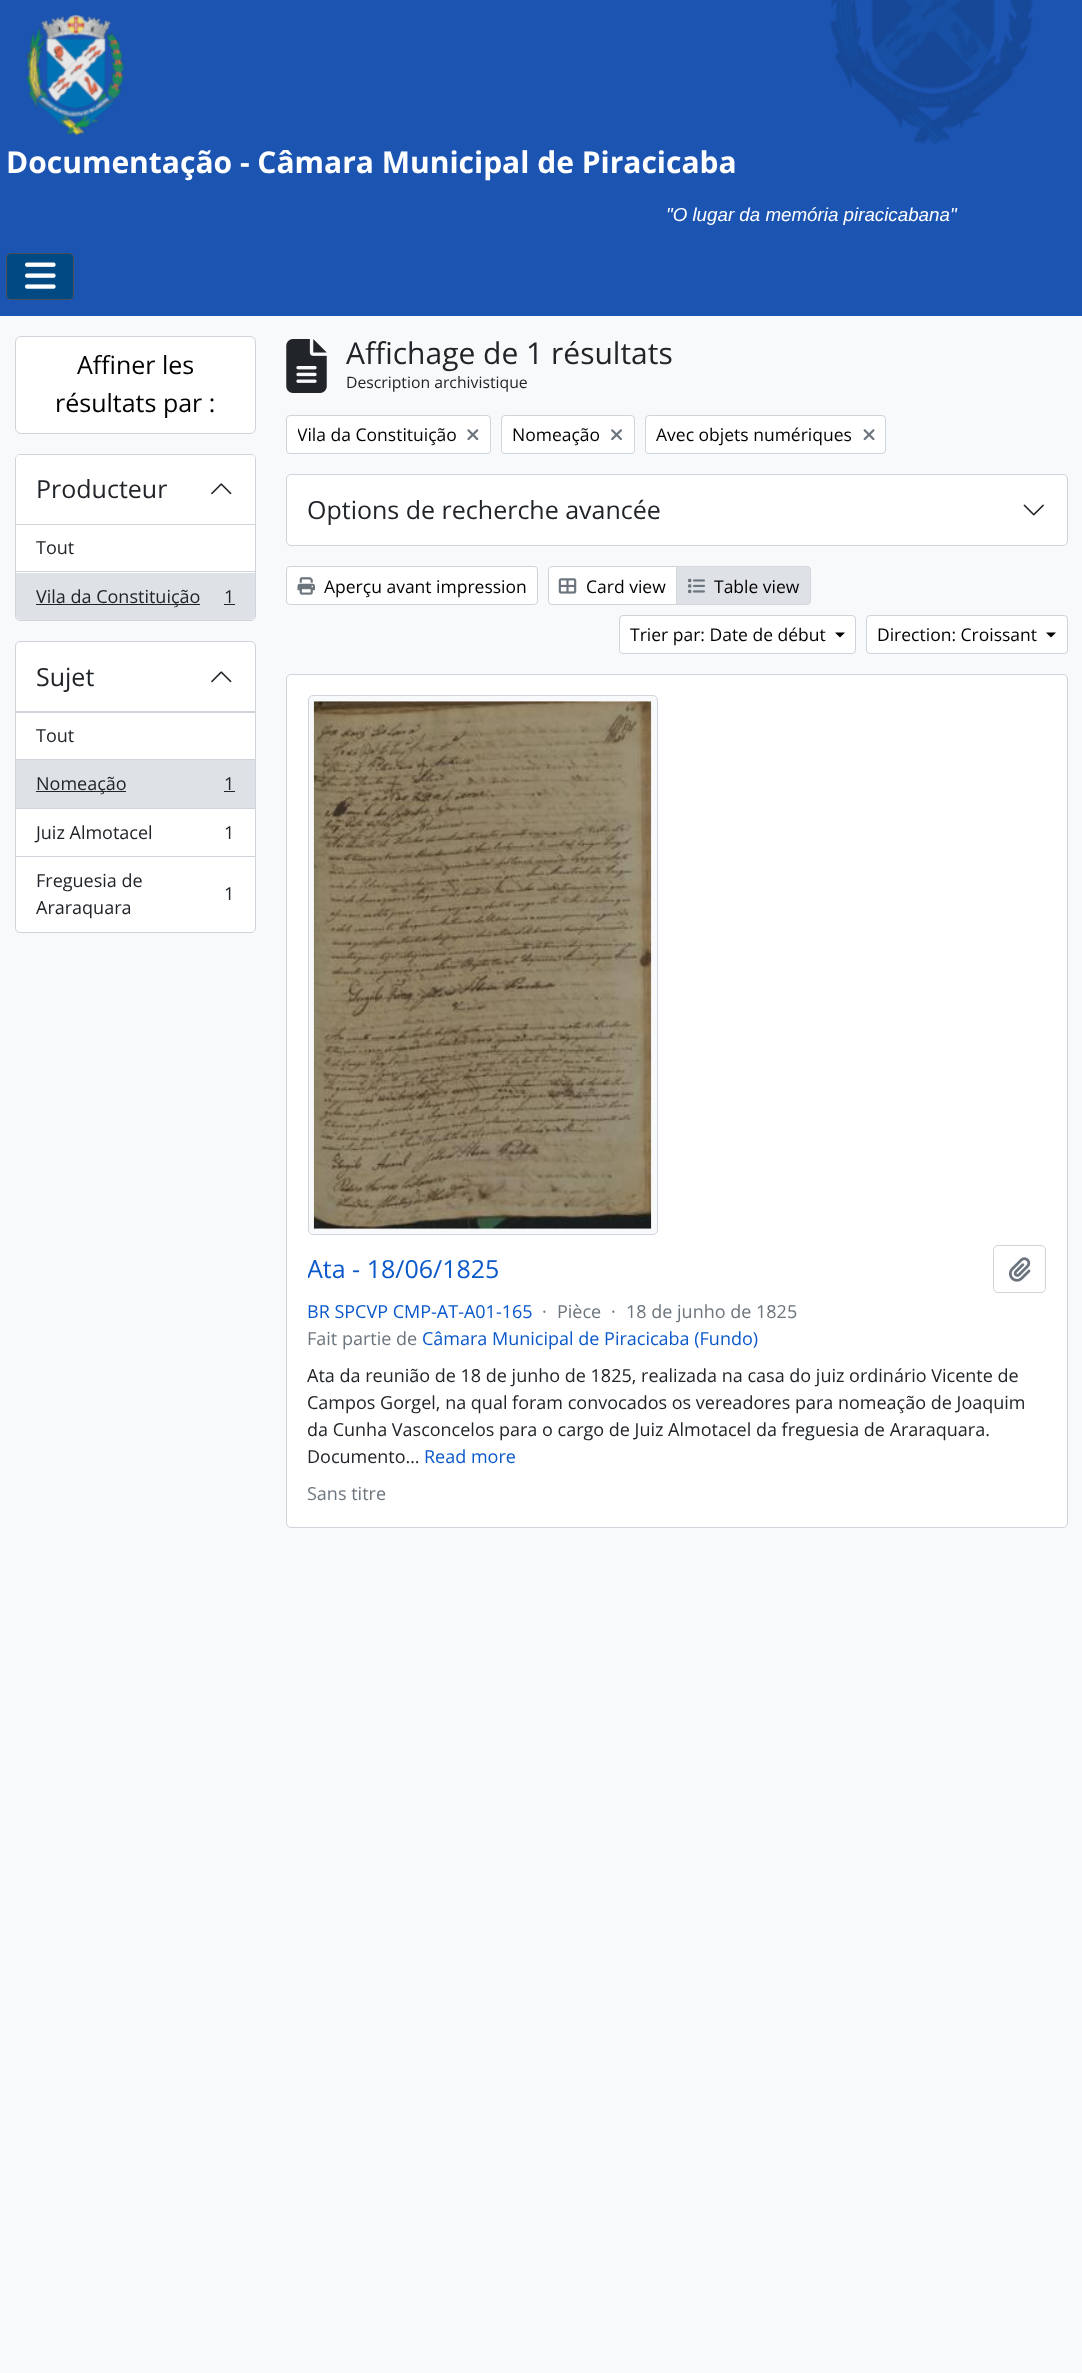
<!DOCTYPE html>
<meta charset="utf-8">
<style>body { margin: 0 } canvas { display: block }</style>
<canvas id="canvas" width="1082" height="2373"></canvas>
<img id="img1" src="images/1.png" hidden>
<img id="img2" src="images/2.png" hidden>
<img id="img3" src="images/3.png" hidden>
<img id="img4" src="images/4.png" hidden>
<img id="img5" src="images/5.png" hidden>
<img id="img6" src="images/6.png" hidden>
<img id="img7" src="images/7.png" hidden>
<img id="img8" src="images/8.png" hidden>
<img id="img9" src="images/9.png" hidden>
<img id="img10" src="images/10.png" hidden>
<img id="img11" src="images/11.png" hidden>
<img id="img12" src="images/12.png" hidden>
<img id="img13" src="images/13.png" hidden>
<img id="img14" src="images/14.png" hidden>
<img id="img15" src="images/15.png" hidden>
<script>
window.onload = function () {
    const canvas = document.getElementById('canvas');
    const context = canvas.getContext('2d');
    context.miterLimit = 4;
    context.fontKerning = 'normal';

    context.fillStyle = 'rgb(248, 249, 250)';
    context.fillRect(0, 0, 1082, 2373);
    context.fillStyle = 'rgb(28, 84, 178)';
    context.fillRect(0, 0, 1082, 316);
    context.drawImage(document.getElementById('img1'), 830, 0, 203, 144);
    context.drawImage(document.getElementById('img2'), 26, 14, 98, 122);
    context.fillStyle = 'rgb(0, 73, 131)';
    context.beginPath();
    context.roundRect(6.5, 253.5, 67, 46, 4.5);
    context.fill();
    context.strokeStyle = 'rgb(73, 80, 87)';
    context.stroke();
    context.drawImage(document.getElementById('img3'), 25, 262, 31, 27);
    context.fillStyle = 'rgb(255, 255, 255)';
    context.beginPath();
    context.roundRect(15.5, 336.5, 240, 97, 5.5);
    context.fill();
    context.strokeStyle = 'rgb(206, 212, 218)';
    context.stroke();
    context.beginPath();
    context.roundRect(15.5, 454.5, 240, 166, 4.5);
    context.fill();
    context.stroke();
    context.beginPath();
    context.roundRect(16, 455, 239, 70, [4, 4, 0, 0]);
    context.fill();
    context.fillStyle = 'rgb(206, 212, 218)';
    context.fillRect(16, 524, 239, 1);
    context.drawImage(document.getElementById('img4'), 211, 483, 21, 12);
    context.fillRect(16, 571, 239, 1);
    context.fillStyle = 'rgb(222, 226, 230)';
    context.beginPath();
    context.roundRect(16, 573, 239, 47, [0, 0, 5, 5]);
    context.fill();
    context.fillStyle = 'rgb(33, 37, 41)';
    context.fillRect(36, 604, 164, 1);
    context.fillRect(224, 604, 11, 1);
    context.fillStyle = 'rgb(255, 255, 255)';
    context.beginPath();
    context.roundRect(15.5, 641.5, 240, 291, 4.5);
    context.fill();
    context.stroke();
    context.fillStyle = 'rgb(206, 212, 218)';
    context.fillRect(16, 711, 239, 2);
    context.drawImage(document.getElementById('img5'), 211, 671, 21, 12);
    context.fillRect(16, 759, 239, 1);
    context.fillStyle = 'rgb(222, 226, 230)';
    context.fillRect(16, 760, 239, 48);
    context.fillStyle = 'rgb(206, 212, 218)';
    context.fillRect(16, 808, 239, 1);
    context.fillStyle = 'rgb(33, 37, 41)';
    context.fillRect(36, 791, 90, 1);
    context.fillRect(224, 791, 11, 1);
    context.fillStyle = 'rgb(206, 212, 218)';
    context.fillRect(16, 856, 239, 1);
    context.drawImage(document.getElementById('img6'), 286, 339, 41, 54);
    context.fillStyle = 'rgb(255, 255, 255)';
    context.beginPath();
    context.roundRect(286.5, 415.5, 204, 38, 3.5);
    context.fill();
    context.stroke();
    context.drawImage(document.getElementById('img7'), 467, 429, 12, 12);
    context.beginPath();
    context.roundRect(501.5, 415.5, 133, 38, 3.5);
    context.fill();
    context.stroke();
    context.drawImage(document.getElementById('img8'), 611, 429, 11, 12);
    context.beginPath();
    context.roundRect(645.5, 415.5, 240, 38, 3.5);
    context.fill();
    context.stroke();
    context.drawImage(document.getElementById('img9'), 863, 429, 12, 12);
    context.beginPath();
    context.roundRect(286.5, 474.5, 781, 71, 4.5);
    context.fill();
    context.stroke();
    context.drawImage(document.getElementById('img10'), 1023, 504, 21, 12);
    context.beginPath();
    context.roundRect(286.5, 566.5, 251, 38, 3.5);
    context.fill();
    context.stroke();
    context.drawImage(document.getElementById('img11'), 297, 577, 18, 18);
    context.beginPath();
    context.roundRect(548.5, 566.5, 129, 38, [3.5, 0, 0, 3.5]);
    context.fill();
    context.stroke();
    context.drawImage(document.getElementById('img12'), 558, 578, 19, 16);
    context.fillStyle = 'rgb(222, 226, 230)';
    context.beginPath();
    context.roundRect(676.5, 566.5, 134, 38, [0, 3.5, 3.5, 0]);
    context.fill();
    context.strokeStyle = 'rgb(211, 216, 222)';
    context.stroke();
    context.drawImage(document.getElementById('img13'), 688, 578, 17, 16);
    context.fillStyle = 'rgb(255, 255, 255)';
    context.beginPath();
    context.roundRect(619.5, 615.5, 236, 38, 3.5);
    context.fill();
    context.strokeStyle = 'rgb(206, 212, 218)';
    context.stroke();
    context.fillStyle = 'rgb(0, 0, 0)';
    context.beginPath();
    context.moveTo(835, 632.5);
    context.lineTo(845, 632.5);
    context.lineTo(840, 637.5);
    context.closePath();
    context.fill();
    context.fillStyle = 'rgb(255, 255, 255)';
    context.beginPath();
    context.roundRect(866.5, 615.5, 201, 38, 3.5);
    context.fill();
    context.stroke();
    context.fillStyle = 'rgb(0, 0, 0)';
    context.beginPath();
    context.moveTo(1046, 632.5);
    context.lineTo(1056, 632.5);
    context.lineTo(1051, 637.5);
    context.closePath();
    context.fill();
    context.fillStyle = 'rgb(255, 255, 255)';
    context.beginPath();
    context.roundRect(286.5, 674.5, 781, 853, 4.5);
    context.fill();
    context.stroke();
    context.fillStyle = 'rgb(248, 249, 250)';
    context.beginPath();
    context.roundRect(308.5, 695.5, 349, 539, 4.5);
    context.fill();
    context.stroke();
    context.drawImage(document.getElementById('img14'), 313, 701, 339, 528);
    context.beginPath();
    context.roundRect(993.5, 1245.5, 52, 47, 4.5);
    context.stroke();
    context.drawImage(document.getElementById('img15'), 1008, 1257, 23, 25);
    context.font = 'bold 30px Open Sans';
    context.fillStyle = 'rgb(255, 255, 255)';
    context.fillText('Documentação - Câmara Municipal de Piracicaba', 6, 173);
    context.font = 'italic 18.75px Liberation Sans';
    context.fillText('"O lugar da memória piracicabana"', 666, 221);
    context.font = '25px Open Sans';
    context.fillStyle = 'rgb(0, 0, 0)';
    context.fillText('Affiner les', 77, 374);
    context.fillText('résultats par :', 55, 412);
    context.fillStyle = 'rgb(33, 37, 41)';
    context.fillText('Producteur', 36, 498);
    context.font = '18px Open Sans';
    context.fillText('Tout', 36, 554);
    context.fillText('Vila da Constituição', 36, 603);
    context.fillText('1', 224, 603);
    context.font = '25px Open Sans';
    context.fillText('Sujet', 36, 686);
    context.font = '18px Open Sans';
    context.fillText('Tout', 36, 742);
    context.fillText('Nomeação', 36, 790);
    context.fillText('1', 224, 790);
    context.fillText('Juiz Almotacel', 36, 839);
    context.fillText('1', 224, 839);
    context.fillText('Freguesia de', 36, 887);
    context.fillText('1', 224, 900);
    context.fillText('Araraquara', 36, 914);
    context.font = '30px Open Sans';
    context.fillText('Affichage de 1 résultats', 346, 364);
    context.font = '15.75px Open Sans';
    context.fillText('Description archivistique', 346, 388);
    context.save();
    context.beginPath();
    context.rect(298, 421, 158, 27);
    context.clip();
    context.font = '17.5px Open Sans';
    context.fillStyle = 'rgb(0, 0, 0)';
    context.fillText('Vila da Constituição', 297, 441);
    context.restore();
    context.font = '17.5px Open Sans';
    context.fillStyle = 'rgb(0, 0, 0)';
    context.fillText('Nomeação', 512, 441);
    context.fillText('Avec objets numériques', 656, 441);
    context.font = '25px Open Sans';
    context.fillStyle = 'rgb(33, 37, 41)';
    context.fillText('Options de recherche avancée', 307, 519);
    context.font = '17.5px Open Sans';
    context.fillStyle = 'rgb(0, 0, 0)';
    context.fillText('Aperçu avant impression', 324, 593);
    context.fillText('Card view', 586, 593);
    context.fillText('Table view', 714, 593);
    context.fillText('Trier par: Date de début', 630, 641);
    context.fillText('Direction: Croissant', 877, 641);
    context.save();
    context.beginPath();
    context.rect(308, 1254, 191, 30);
    context.clip();
    context.font = '25px Open Sans';
    context.fillStyle = 'rgb(10, 88, 202)';
    context.fillText('Ata - 18/06/1825', 307, 1278);
    context.restore();
    context.font = '18px Open Sans';
    context.fillStyle = 'rgb(10, 88, 202)';
    context.fillText('BR SPCVP CMP-AT-A01-165', 307, 1318);
    context.fillStyle = 'rgb(108, 117, 125)';
    context.fillText('·', 542, 1318);
    context.fillText('Pièce', 557, 1318);
    context.fillText('·', 611, 1318);
    context.fillText('18 de junho de 1825', 626, 1318);
    context.fillText('Fait partie de', 307, 1345);
    context.fillStyle = 'rgb(10, 88, 202)';
    context.fillText('Câmara Municipal de Piracicaba (Fundo)', 422, 1345);
    context.fillStyle = 'rgb(33, 37, 41)';
    context.fillText('Ata da reunião de 18 de junho de 1825, realizada na casa do juiz ordinário Vicente de', 307, 1382);
    context.fillText('Campos Gorgel, na qual foram convocados os vereadores para nomeação de Joaquim', 307, 1409);
    context.fillText('da Cunha Vasconcelos para o cargo de Juiz Almotacel da freguesia de Araraquara.', 307, 1436);
    context.fillText('Documento…', 307, 1463);
    context.fillStyle = 'rgb(10, 88, 202)';
    context.fillText('Read more', 424, 1463);
    context.fillStyle = 'rgb(108, 117, 125)';
    context.fillText('Sans titre', 307, 1500);
};
</script>
